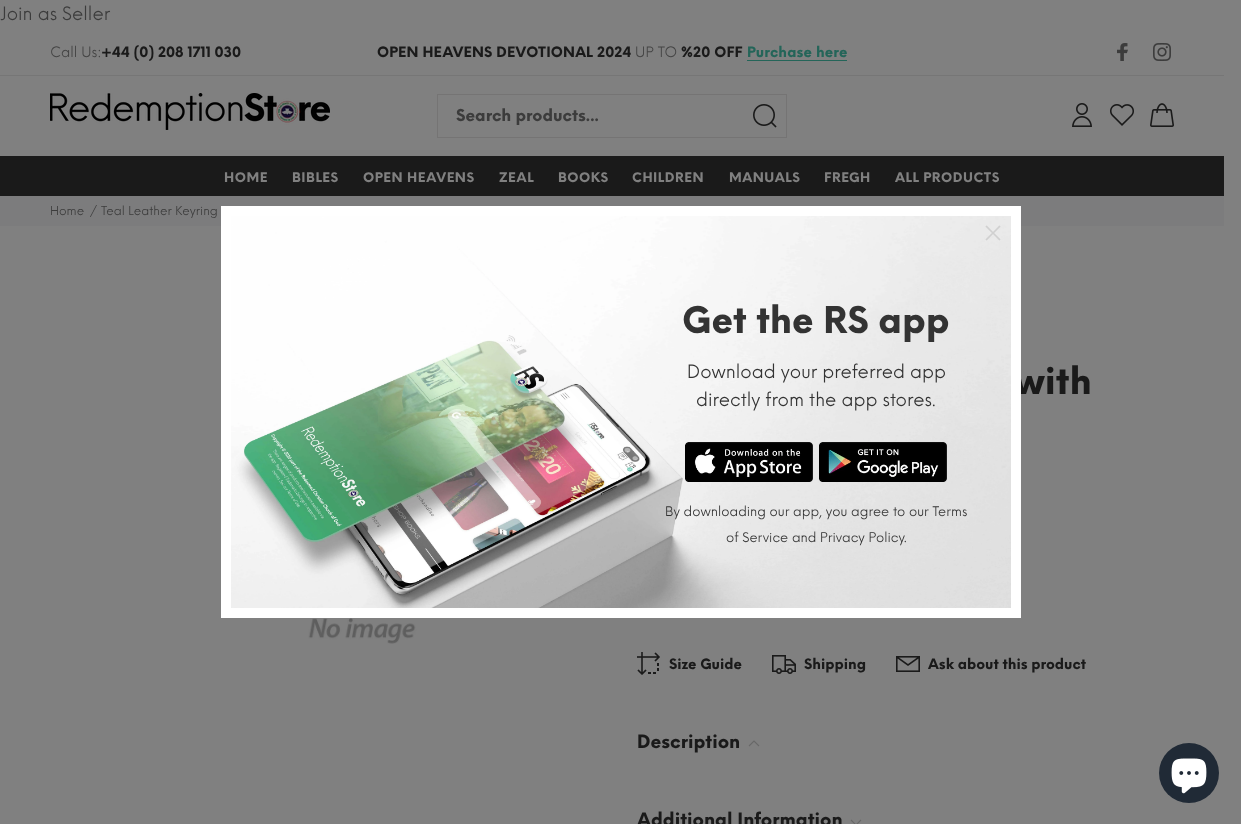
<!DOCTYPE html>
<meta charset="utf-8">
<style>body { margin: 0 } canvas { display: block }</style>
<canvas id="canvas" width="1241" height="824"></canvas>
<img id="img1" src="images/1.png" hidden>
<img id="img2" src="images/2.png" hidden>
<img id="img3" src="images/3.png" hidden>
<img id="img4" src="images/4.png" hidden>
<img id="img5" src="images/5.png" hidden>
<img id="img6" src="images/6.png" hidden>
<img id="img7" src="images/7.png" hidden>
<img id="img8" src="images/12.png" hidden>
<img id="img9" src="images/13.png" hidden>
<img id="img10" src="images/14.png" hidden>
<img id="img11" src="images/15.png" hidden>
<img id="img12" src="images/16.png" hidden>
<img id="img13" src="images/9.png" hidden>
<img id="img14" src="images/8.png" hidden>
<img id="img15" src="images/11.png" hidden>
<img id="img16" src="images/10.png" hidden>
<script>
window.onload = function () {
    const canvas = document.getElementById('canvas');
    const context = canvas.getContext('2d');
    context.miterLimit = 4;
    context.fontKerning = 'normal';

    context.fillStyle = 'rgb(128, 128, 128)';
    context.fillRect(0, 0, 1241, 824);
    context.fillStyle = 'rgb(118, 118, 118)';
    context.fillRect(0, 75, 1224, 1);
    context.fillStyle = 'rgb(36, 101, 89)';
    context.fillRect(747, 60, 100, 1);
    context.drawImage(document.getElementById('img1'), 1117, 43, 11, 18);
    context.drawImage(document.getElementById('img2'), 1153, 43, 18, 18);
    context.drawImage(document.getElementById('img3'), 50, 93, 280, 37);
    context.strokeStyle = 'rgb(117, 116, 116)';
    context.strokeRect(437.5, 94.5, 349, 43);
    context.drawImage(document.getElementById('img4'), 753, 104, 24, 24);
    context.drawImage(document.getElementById('img5'), 1072, 103, 20, 24);
    context.drawImage(document.getElementById('img6'), 1110, 104, 24, 22);
    context.drawImage(document.getElementById('img7'), 1150, 103, 24, 24);
    context.fillStyle = 'rgb(26, 26, 26)';
    context.fillRect(0, 156, 1224, 40);
    context.fillStyle = 'rgb(124, 124, 125)';
    context.fillRect(0, 196, 1224, 30);
    context.drawImage(document.getElementById('img8'), 302, 618, 120, 26);
    context.drawImage(document.getElementById('img9'), 637, 652, 23, 23);
    context.drawImage(document.getElementById('img10'), 772, 655, 24, 19);
    context.drawImage(document.getElementById('img11'), 896, 656, 24, 16);
    context.beginPath();
    context.moveTo(749, 746);
    context.lineTo(754, 741);
    context.lineTo(759, 746);
    context.strokeStyle = 'rgb(104, 104, 104)';
    context.lineWidth = 1.1;
    context.stroke();
    context.beginPath();
    context.moveTo(851, 820);
    context.lineTo(856, 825);
    context.lineTo(861, 820);
    context.stroke();
    context.fillStyle = 'rgb(32, 42, 54)';
    context.beginPath();
    context.arc(1189, 773, 30, 0, 2 * Math.PI);
    context.fill();
    context.drawImage(document.getElementById('img12'), 1171, 758, 36, 36);
    context.font = '18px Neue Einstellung';
    context.fillStyle = 'rgb(60, 60, 60)';
    context.fillText('Join as Seller', 0, 20);
    context.font = '14px Neue Einstellung';
    context.fillStyle = 'rgb(68, 68, 68)';
    context.fillText('Call Us:', 50, 57);
    context.font = '800 14px Neue Einstellung';
    context.fillStyle = 'rgb(26, 26, 26)';
    context.fillText('+44 (0) 208 1711 030', 101, 57);
    context.letterSpacing = '0.15px';
    context.fillText('OPEN HEAVENS DEVOTIONAL 2024', 377, 57);
    context.font = '14px Neue Einstellung';
    context.fillStyle = 'rgb(68, 68, 68)';
    context.fillText('UP TO', 635, 57);
    context.font = '800 14px Neue Einstellung';
    context.fillStyle = 'rgb(26, 26, 26)';
    context.fillText('%20 OFF', 681, 57);
    context.fillStyle = 'rgb(36, 101, 89)';
    context.fillText('Purchase here', 747, 57);
    context.letterSpacing = '0px';
    context.font = '800 16px Neue Einstellung';
    context.fillStyle = 'rgb(60, 60, 60)';
    context.fillText('Search products...', 456, 121);
    context.letterSpacing = '0.5px';
    context.font = '800 13px Neue Einstellung';
    context.fillStyle = 'rgb(128, 128, 128)';
    context.fillText('HOME', 224, 182);
    context.fillText('BIBLES', 292, 182);
    context.fillText('OPEN HEAVENS', 363, 182);
    context.fillText('ZEAL', 499, 182);
    context.fillText('BOOKS', 558, 182);
    context.fillText('CHILDREN', 632, 182);
    context.fillText('MANUALS', 729, 182);
    context.fillText('FREGH', 824, 182);
    context.fillText('ALL PRODUCTS', 895, 182);
    context.letterSpacing = '0px';
    context.font = '12px Neue Einstellung';
    context.fillStyle = 'rgb(60, 60, 60)';
    context.fillText('Home', 50, 215);
    context.fillText('/', 90, 215);
    context.fillText('Teal Leather Keyring', 101, 215);
    context.font = '800 36px Neue Einstellung';
    context.fillStyle = 'rgb(26, 26, 26)';
    context.fillText('with', 1014, 394);
    context.fillStyle = 'rgb(255, 255, 255)';
    context.fillRect(221, 206, 800, 412);
    context.drawImage(document.getElementById('img13'), 231, 216, 780, 392);
    context.drawImage(document.getElementById('img14'), 985, 225, 16, 16);
    context.font = '13px Neue Einstellung';
    context.fillStyle = 'rgb(51, 51, 51)';
    context.fillText('of Service and Privacy Policy.', 726, 542);
    context.fillText('By downloading our app, you agree to our Terms', 665, 516);
    context.drawImage(document.getElementById('img15'), 819, 442, 128, 40);
    context.drawImage(document.getElementById('img16'), 685, 442, 128, 40);
    context.font = '18px Neue Einstellung';
    context.fillText('directly from the app stores.', 696, 406);
    context.fillText('Download your preferred app', 687, 378);
    context.font = '800 36px Neue Einstellung';
    context.fillText('Get the RS app', 682, 333);
    context.font = '800 14px Neue Einstellung';
    context.fillStyle = 'rgb(26, 26, 26)';
    context.fillText('Size Guide', 669, 669);
    context.fillText('Shipping', 804, 669);
    context.fillText('Ask about this product', 928, 669);
    context.font = '800 18px Neue Einstellung';
    context.fillText('Description', 637, 748);
    context.fillText('Additional Information', 637, 826);
};
</script>
